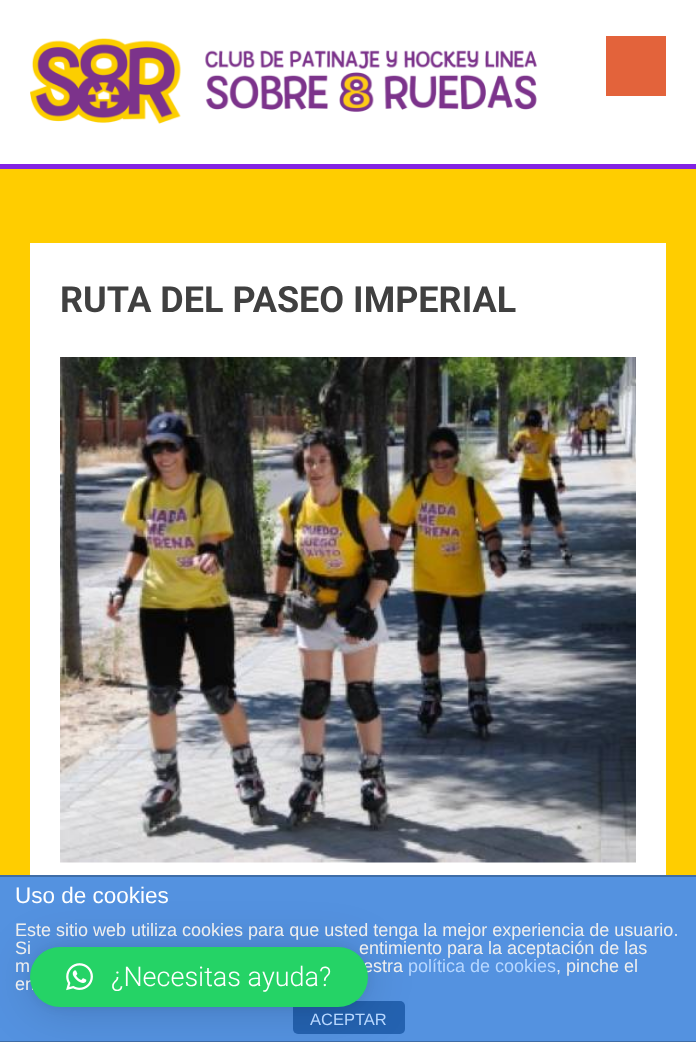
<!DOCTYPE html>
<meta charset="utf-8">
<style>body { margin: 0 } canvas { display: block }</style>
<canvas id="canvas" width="696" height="1042"></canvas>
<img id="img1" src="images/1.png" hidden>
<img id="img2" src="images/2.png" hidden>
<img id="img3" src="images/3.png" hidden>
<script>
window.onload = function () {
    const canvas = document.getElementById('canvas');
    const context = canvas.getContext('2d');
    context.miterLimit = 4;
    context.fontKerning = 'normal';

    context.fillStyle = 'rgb(255, 205, 0)';
    context.fillRect(0, 0, 696, 1042);
    context.fillStyle = 'rgb(255, 255, 255)';
    context.fillRect(0, 0, 696, 164);
    context.fillStyle = 'rgb(130, 36, 227)';
    context.fillRect(0, 164, 696, 5);
    context.drawImage(document.getElementById('img1'), 30, 38, 507, 86);
    context.fillStyle = 'rgb(227, 99, 59)';
    context.fillRect(606, 36, 60, 60);
    context.fillStyle = 'rgb(255, 255, 255)';
    context.fillRect(30, 243, 636, 632);
    context.drawImage(document.getElementById('img2'), 60, 357, 576, 506);
    context.fillStyle = 'rgb(84, 146, 224)';
    context.fillRect(0, 877, 696, 164);
    context.fillStyle = 'rgb(63, 109, 167)';
    context.fillRect(0, 875, 696, 2);
    context.fillRect(0, 1041, 696, 1);
    context.fillStyle = 'rgb(36, 98, 176)';
    context.beginPath();
    context.roundRect(293, 1001, 112, 33, 5);
    context.fill();
    context.fillStyle = 'rgba(0, 0, 0, 0.16)';
    context.filter = 'blur(24px)';
    context.beginPath();
    context.roundRect(30, 950, 338, 60, 30);
    context.fill();
    context.filter = 'none';
    context.fillStyle = 'rgba(0, 0, 0, 0.06)';
    context.filter = 'blur(4.5px)';
    context.beginPath();
    context.roundRect(30, 948, 338, 60, 30);
    context.fill();
    context.filter = 'none';
    context.font = 'bold 36px Roboto';
    context.fillStyle = 'rgb(64, 64, 64)';
    context.fillText('RUTA DEL PASEO IMPERIAL', 60, 312);
    context.font = '22.5px Liberation Sans';
    context.fillStyle = 'rgb(255, 255, 255)';
    context.fillText('Uso de cookies', 15, 903);
    context.font = '18px Liberation Sans';
    context.fillStyle = 'rgb(238, 238, 238)';
    context.fillText('Este sitio web utiliza cookies para que usted tenga la mejor experiencia de usuario.', 15, 936);
    context.fillText('Si', 15, 954);
    context.fillText('entimiento para la aceptación de las', 359, 954);
    context.fillText('m', 15, 972);
    context.fillText('estra', 363, 972);
    context.fillStyle = 'rgb(183, 215, 255)';
    context.fillText('política de cookies', 408, 972);
    context.fillStyle = 'rgb(238, 238, 238)';
    context.fillText(', pinche el', 556, 972);
    context.fillText('en', 15, 990);
    context.font = '16.5px Liberation Sans';
    context.fillStyle = 'rgb(183, 215, 255)';
    context.fillText('ACEPTAR', 310, 1025);
    context.fillStyle = 'rgb(37, 211, 102)';
    context.beginPath();
    context.roundRect(30, 947, 338, 60, 30);
    context.fill();
    context.drawImage(document.getElementById('img3'), 66, 963, 27, 28);
    context.font = '300 27px Roboto';
    context.fillStyle = 'rgb(255, 255, 255)';
    context.fillText('¿Necesitas ayuda?', 111, 986);
};
</script>
